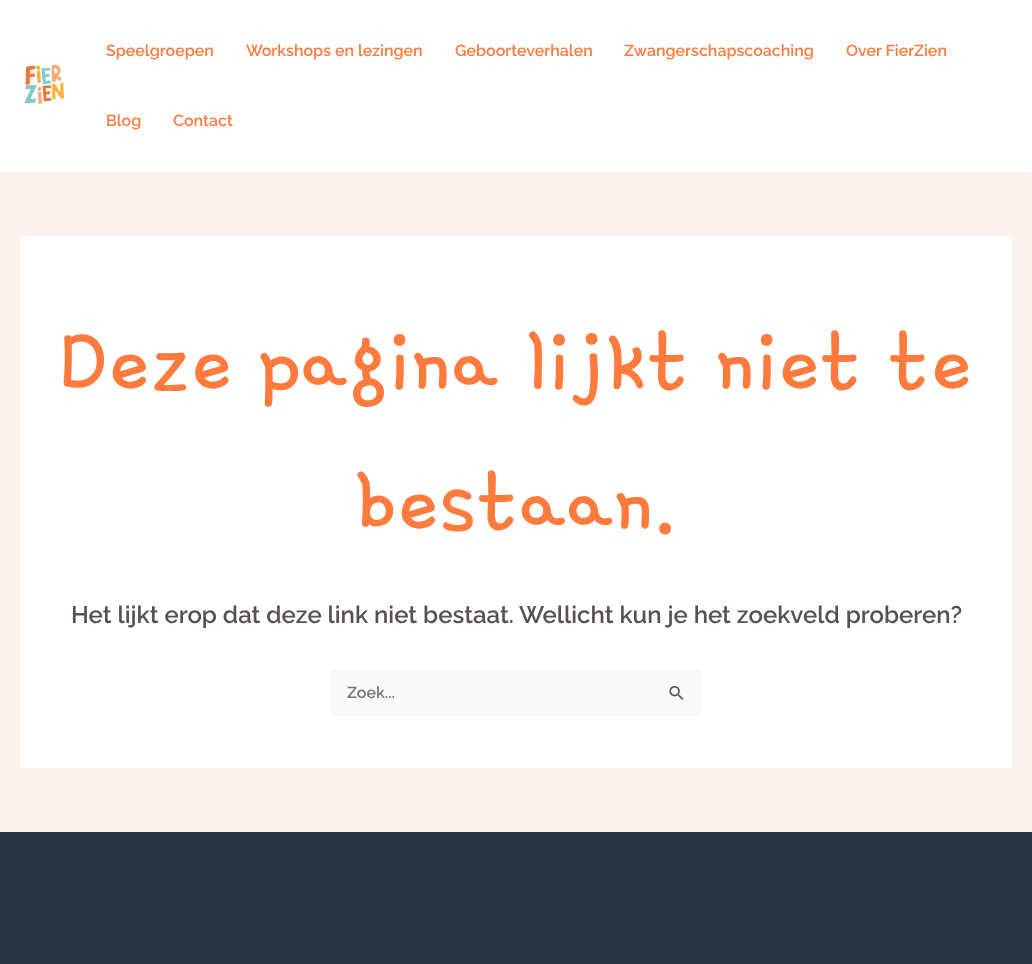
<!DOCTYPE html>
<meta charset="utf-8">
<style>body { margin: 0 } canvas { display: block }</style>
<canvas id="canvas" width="1032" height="964"></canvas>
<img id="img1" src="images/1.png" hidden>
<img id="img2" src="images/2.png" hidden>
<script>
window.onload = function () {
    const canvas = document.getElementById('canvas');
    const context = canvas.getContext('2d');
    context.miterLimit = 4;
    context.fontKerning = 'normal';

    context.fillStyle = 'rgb(252, 243, 237)';
    context.fillRect(0, 0, 1032, 964);
    context.fillStyle = 'rgb(255, 255, 255)';
    context.fillRect(0, 0, 1032, 172);
    context.drawImage(document.getElementById('img1'), 24, 64, 40, 40);
    context.fillRect(20, 236, 992, 532);
    context.fillStyle = 'rgb(250, 250, 250)';
    context.beginPath();
    context.roundRect(331.5, 670.5, 369, 44, 1.5);
    context.fill();
    context.strokeStyle = 'rgb(248, 245, 244)';
    context.stroke();
    context.drawImage(document.getElementById('img2'), 669, 686, 15, 14);
    context.fillStyle = 'rgb(41, 50, 65)';
    context.fillRect(0, 832, 1032, 132);
    context.font = '100 16px Raleway';
    context.fillStyle = 'rgb(255, 122, 61)';
    context.fillText('Speelgroepen', 106, 56);
    context.fillText('Workshops en lezingen', 246, 56);
    context.fillText('Geboorteverhalen', 455, 56);
    context.fillText('Zwangerschapscoaching', 624, 56);
    context.fillText('Over FierZien', 846, 56);
    context.fillText('Blog', 106, 126);
    context.fillText('Contact', 173, 126);
    context.font = '100px Gamja Flower';
    context.fillText('Deze pagina lijkt niet te', 59, 387);
    context.fillText('bestaan.', 354, 527);
    context.font = '100 24px Raleway';
    context.fillStyle = 'rgb(87, 82, 80)';
    context.fillText('Het lijkt erop dat deze link niet bestaat. Wellicht kun je het zoekveld proberen?', 71, 623);
    context.font = '100 16px Raleway';
    context.fillStyle = 'rgb(117, 117, 117)';
    context.fillText('Zoek...', 347, 698);
};
</script>
